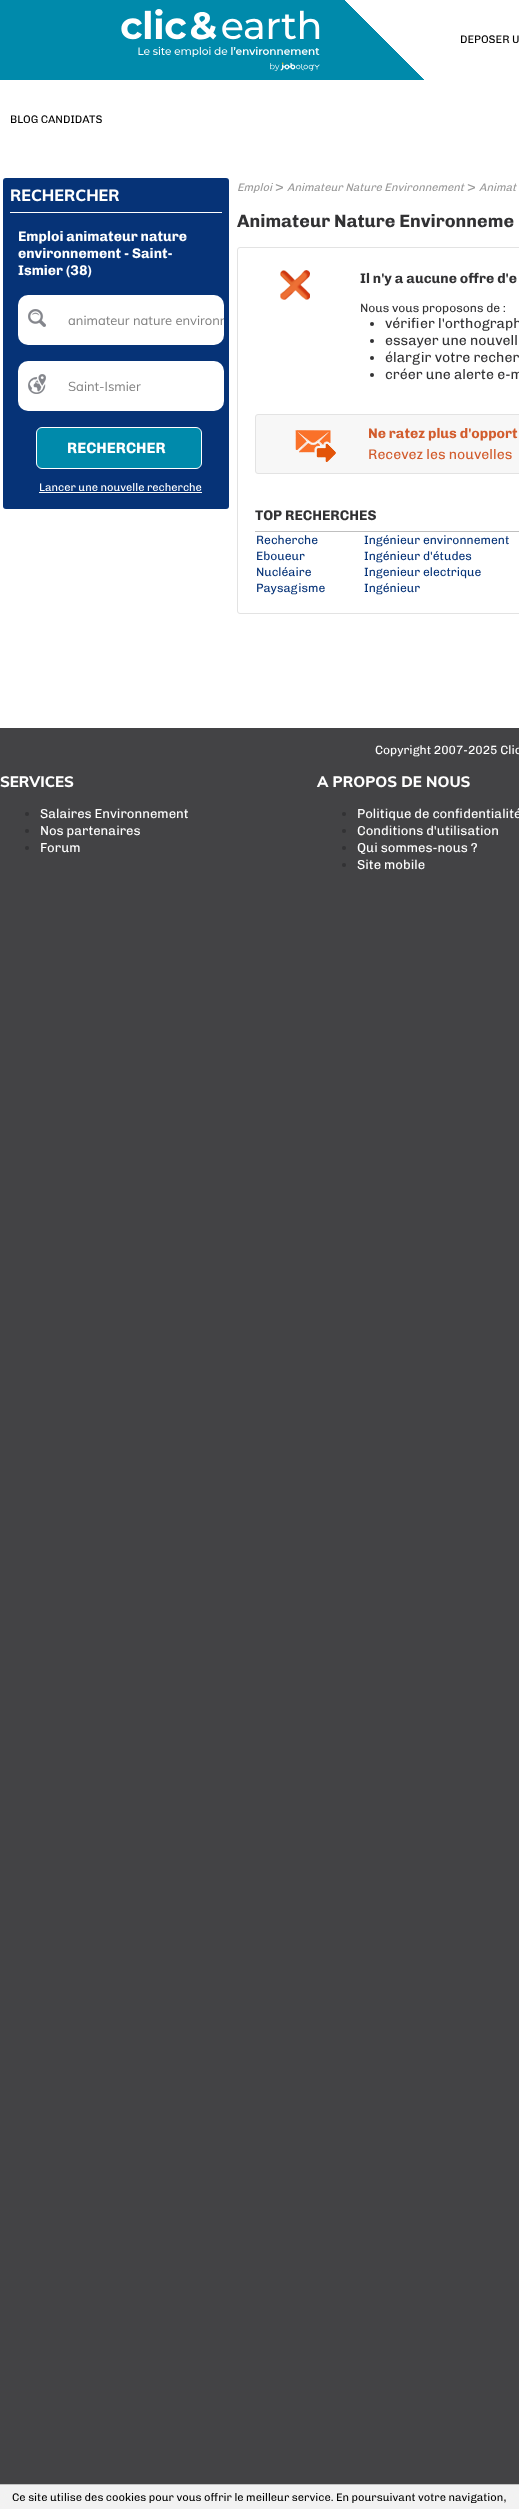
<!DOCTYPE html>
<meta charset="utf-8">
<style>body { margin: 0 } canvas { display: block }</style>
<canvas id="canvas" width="519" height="2509"></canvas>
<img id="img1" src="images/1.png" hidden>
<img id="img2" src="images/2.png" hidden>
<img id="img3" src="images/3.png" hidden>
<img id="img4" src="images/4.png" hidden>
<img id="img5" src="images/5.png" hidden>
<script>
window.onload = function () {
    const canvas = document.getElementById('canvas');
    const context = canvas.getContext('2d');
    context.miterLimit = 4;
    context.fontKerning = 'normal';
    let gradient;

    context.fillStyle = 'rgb(67, 67, 69)';
    context.fillRect(0, 0, 519, 2509);
    context.fillStyle = 'rgb(255, 255, 255)';
    context.fillRect(450, 0, 69, 80);
    gradient = context.createLinearGradient(93, 173, 358, -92);
    gradient.addColorStop(0.8, 'rgb(0, 138, 171)');
    gradient.addColorStop(0.8, 'rgb(255, 255, 255)');
    context.fillStyle = gradient;
    context.fillRect(0, 0, 450, 80);
    context.drawImage(document.getElementById('img1'), 121, 9, 199, 62);
    context.fillStyle = 'rgb(255, 255, 255)';
    context.fillRect(0, 80, 519, 648);
    context.fillStyle = 'rgb(6, 51, 119)';
    context.beginPath();
    context.roundRect(3, 178, 226, 331, 3);
    context.fill();
    context.fillStyle = 'rgb(255, 255, 255)';
    context.fillRect(10, 212, 212, 1);
    context.beginPath();
    context.roundRect(18, 295, 206, 50, 10);
    context.fill();
    context.drawImage(document.getElementById('img2'), 28, 309, 18, 18);
    context.beginPath();
    context.roundRect(18, 361, 206, 50, 10);
    context.fill();
    context.drawImage(document.getElementById('img3'), 28, 374, 18, 20);
    context.fillStyle = 'rgb(0, 138, 171)';
    context.beginPath();
    context.roundRect(36.5, 427.5, 165, 41, 5.5);
    context.fill();
    context.strokeStyle = 'rgb(255, 255, 255)';
    context.stroke();
    context.fillStyle = 'rgb(255, 255, 255)';
    context.fillRect(39, 492, 163, 1);
    context.beginPath();
    context.roundRect(237.5, 247.5, 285, 366, 2.5);
    context.strokeStyle = 'rgb(227, 227, 227)';
    context.stroke();
    context.drawImage(document.getElementById('img4'), 280, 270, 30, 30);
    context.fillStyle = 'rgb(50, 50, 52)';
    context.beginPath();
    context.arc(372, 324, 2, 0, 2 * Math.PI);
    context.fill();
    context.beginPath();
    context.arc(372, 341, 2, 0, 2 * Math.PI);
    context.fill();
    context.beginPath();
    context.arc(372, 358, 2, 0, 2 * Math.PI);
    context.fill();
    context.beginPath();
    context.arc(372, 375, 2, 0, 2 * Math.PI);
    context.fill();
    context.fillStyle = 'rgb(247, 247, 247)';
    context.beginPath();
    context.roundRect(255.5, 414.5, 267, 59, 2.5);
    context.fill();
    context.stroke();
    context.drawImage(document.getElementById('img5'), 295, 430, 41, 32);
    context.fillStyle = 'rgb(191, 191, 191)';
    context.fillRect(255, 531, 264, 1);
    context.fillStyle = 'rgb(50, 50, 52)';
    context.beginPath();
    context.arc(27, 814, 2, 0, 2 * Math.PI);
    context.fill();
    context.beginPath();
    context.arc(27, 831, 2, 0, 2 * Math.PI);
    context.fill();
    context.beginPath();
    context.arc(27, 848, 2, 0, 2 * Math.PI);
    context.fill();
    context.beginPath();
    context.arc(344, 814, 2, 0, 2 * Math.PI);
    context.fill();
    context.beginPath();
    context.arc(344, 831, 2, 0, 2 * Math.PI);
    context.fill();
    context.beginPath();
    context.arc(344, 848, 2, 0, 2 * Math.PI);
    context.fill();
    context.beginPath();
    context.arc(344, 865, 2, 0, 2 * Math.PI);
    context.fill();
    context.fillStyle = 'rgb(242, 242, 242)';
    context.fillRect(0, 2485, 519, 24);
    context.fillStyle = 'rgb(192, 192, 192)';
    context.fillRect(0, 2484, 519, 1);
    context.font = '11px Chivo';
    context.fillStyle = 'rgb(0, 0, 0)';
    context.fillText('DEPOSER U', 460, 43);
    context.fillText('BLOG CANDIDATS', 10, 123);
    context.font = '800 16px Muli';
    context.fillStyle = 'rgb(255, 255, 255)';
    context.fillText('RECHERCHER', 10, 201);
    context.font = 'bold 14px Chivo';
    context.fillText('Emploi animateur nature', 18, 241);
    context.fillText('environnement - Saint-', 18, 258);
    context.fillText('Ismier (38)', 18, 275);
    context.save();
    context.beginPath();
    context.rect(68, 312, 156, 16);
    context.clip();
    context.font = '13px Muli';
    context.fillStyle = 'rgb(128, 128, 128)';
    context.fillText('animateur nature environn', 68, 325);
    context.restore();
    context.font = '13px Muli';
    context.fillStyle = 'rgb(128, 128, 128)';
    context.fillText('Saint-Ismier', 68, 391);
    context.font = 'bold 15px Chivo';
    context.fillStyle = 'rgb(255, 255, 255)';
    context.fillText('RECHERCHER', 67, 453);
    context.font = '11px Chivo';
    context.fillText('Lancer une nouvelle recherche', 39, 491);
    context.font = 'italic 11px Chivo';
    context.fillStyle = 'rgb(153, 153, 153)';
    context.fillText('Emploi', 237, 191);
    context.font = '14px Chivo';
    context.fillText('>', 275, 191);
    context.font = 'italic 11px Chivo';
    context.fillText('Animateur Nature Environnement', 287, 191);
    context.font = '14px Chivo';
    context.fillText('>', 467, 191);
    context.font = 'italic 11px Chivo';
    context.fillText('Animat', 479, 191);
    context.font = 'bold 18px Chivo';
    context.fillStyle = 'rgb(50, 50, 52)';
    context.fillText('Animateur Nature Environneme', 237, 227);
    context.font = 'bold 14px Chivo';
    context.fillText('Il n\'y a aucune offre d\'e', 360, 283);
    context.font = '12px Chivo';
    context.fillText('Nous vous proposons de :', 360, 312);
    context.font = '14px Chivo';
    context.fillText('vérifier l\'orthograph', 385, 328);
    context.fillText('essayer une nouvell', 385, 345);
    context.fillText('élargir votre recher', 385, 362);
    context.fillText('créer une alerte e-m', 385, 379);
    context.font = 'bold 14px Chivo';
    context.fillStyle = 'rgb(210, 92, 45)';
    context.fillText('Ne ratez plus d\'opport', 368, 438);
    context.font = '14px Chivo';
    context.fillText('Recevez les nouvelles', 368, 459);
    context.font = 'bold 14px Chivo';
    context.fillStyle = 'rgb(50, 50, 52)';
    context.fillText('TOP RECHERCHES', 255, 520);
    context.font = '12px Chivo';
    context.fillStyle = 'rgb(6, 51, 120)';
    context.fillText('Recherche', 256, 544);
    context.fillText('Ingénieur environnement', 364, 544);
    context.fillText('Eboueur', 256, 560);
    context.fillText('Ingénieur d\'études', 364, 560);
    context.fillText('Nucléaire', 256, 576);
    context.fillText('Ingenieur electrique', 364, 576);
    context.fillText('Paysagisme', 256, 592);
    context.fillText('Ingénieur', 364, 592);
    context.fillStyle = 'rgb(255, 255, 255)';
    context.fillText('Copyright 2007-2025 Clic', 375, 754);
    context.font = '800 15px Muli';
    context.fillText('SERVICES', 0, 787);
    context.font = '13px Chivo';
    context.fillText('Salaires Environnement', 40, 818);
    context.fillText('Nos partenaires', 40, 835);
    context.fillText('Forum', 40, 852);
    context.font = '800 15px Muli';
    context.fillText('A PROPOS DE NOUS', 317, 787);
    context.font = '13px Chivo';
    context.fillText('Politique de confidentialité', 357, 818);
    context.fillText('Conditions d\'utilisation', 357, 835);
    context.fillText('Qui sommes-nous ?', 357, 852);
    context.fillText('Site mobile', 357, 869);
    context.font = '11px Chivo';
    context.fillStyle = 'rgb(0, 0, 0)';
    context.fillText('Ce site utilise des cookies pour vous offrir le meilleur service. En poursuivant votre navigation,', 12, 2501);
};
</script>
